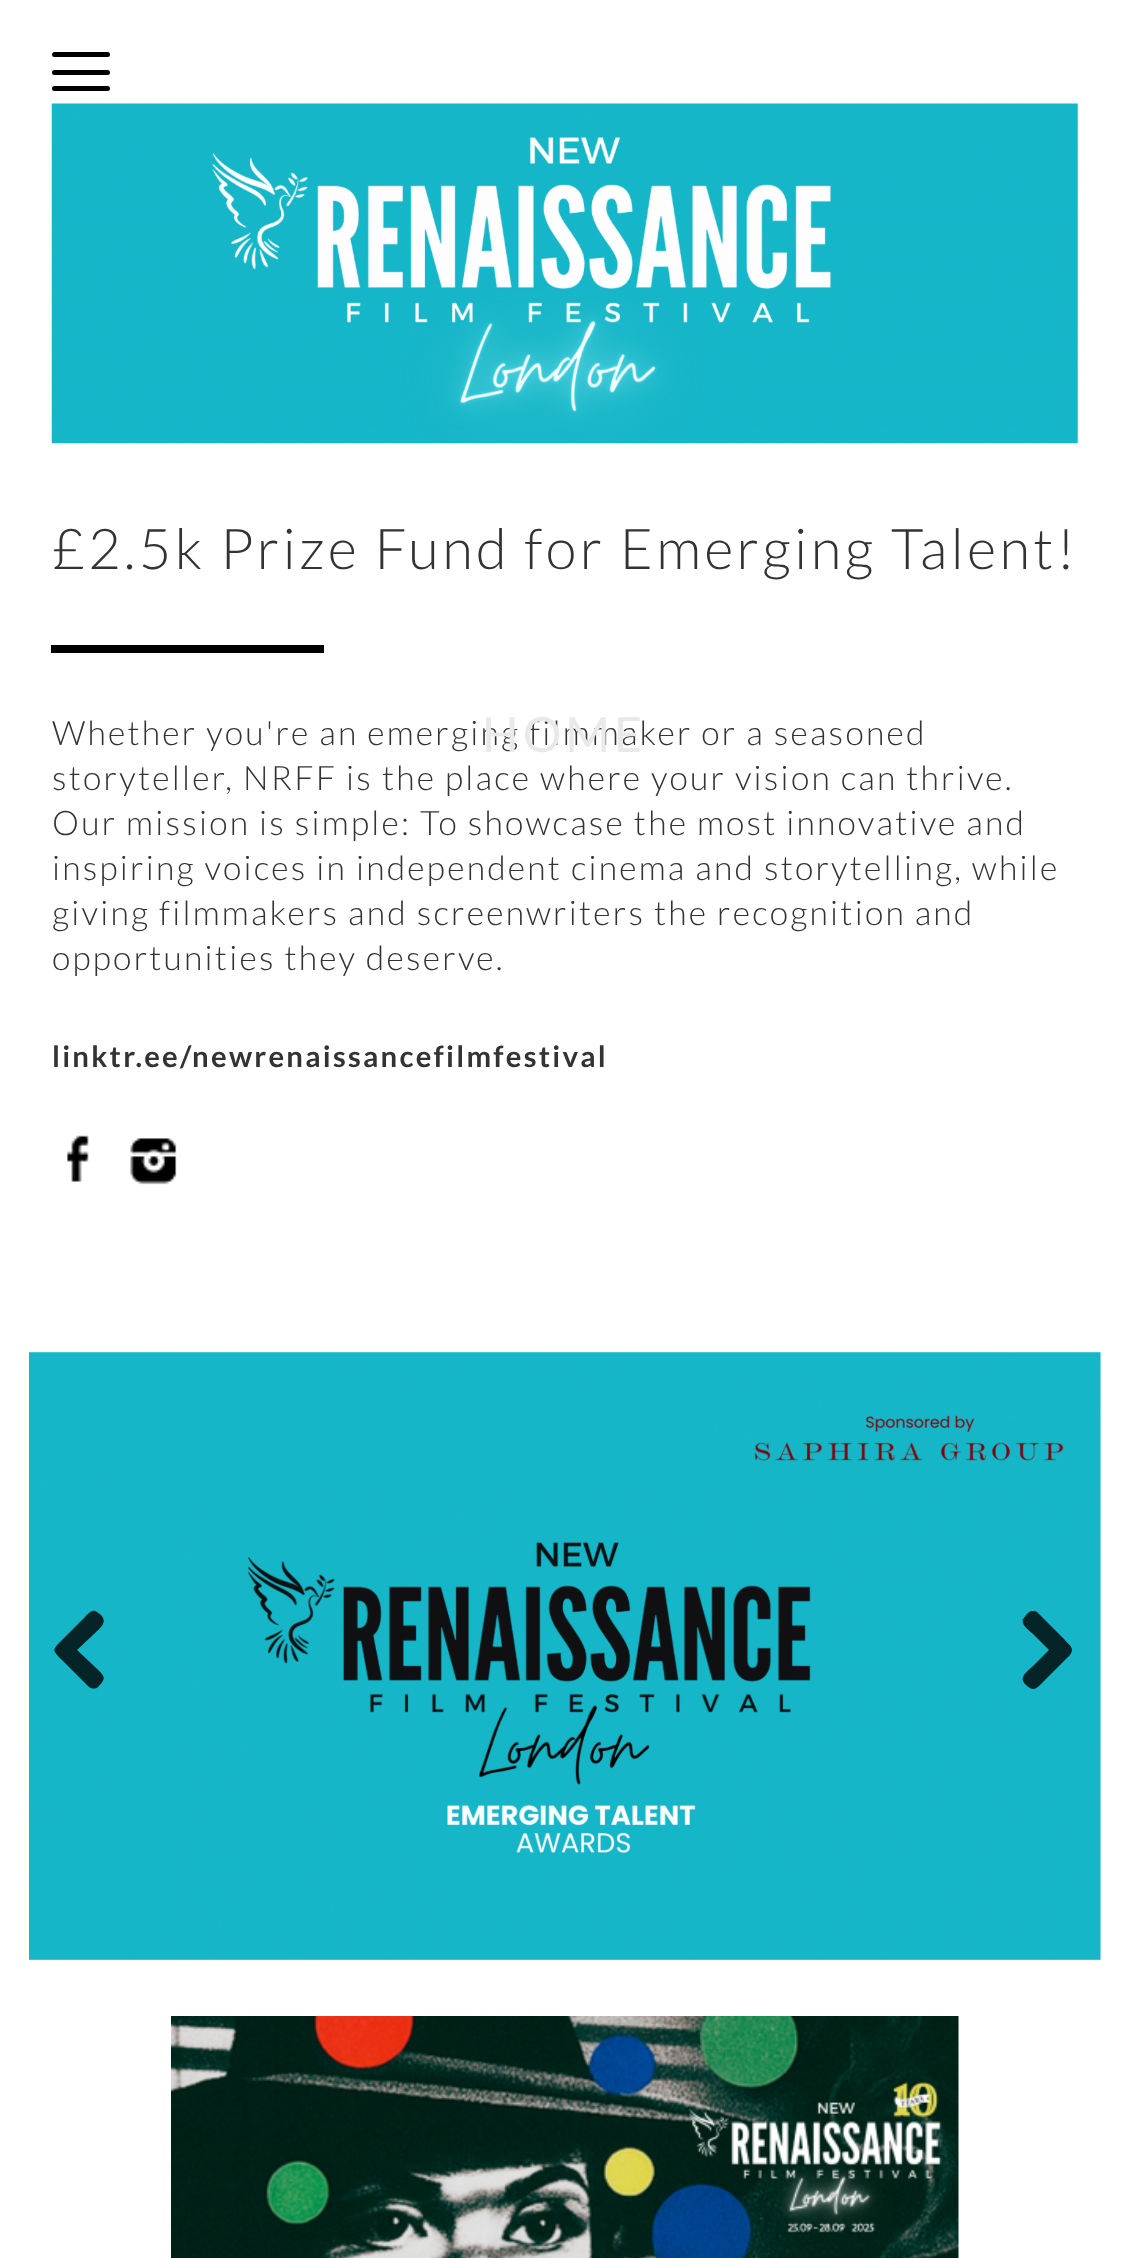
<!DOCTYPE html>
<meta charset="utf-8">
<style>body { margin: 0 } canvas { display: block }</style>
<canvas id="canvas" width="1129" height="2258"></canvas>
<img id="img1" src="images/1.png" hidden>
<img id="img2" src="images/2.png" hidden>
<img id="img3" src="images/3.png" hidden>
<img id="img4" src="images/4.png" hidden>
<img id="img5" src="images/5.png" hidden>
<script>
window.onload = function () {
    const canvas = document.getElementById('canvas');
    const context = canvas.getContext('2d');
    context.miterLimit = 4;
    context.fontKerning = 'normal';

    context.fillStyle = 'rgb(255, 255, 255)';
    context.fillRect(0, 0, 1129, 2258);
    context.fillStyle = 'rgb(0, 0, 0)';
    context.beginPath();
    context.roundRect(52, 70, 58, 5, 2.5);
    context.fill();
    context.beginPath();
    context.roundRect(52, 52, 58, 5, 2.5);
    context.fill();
    context.beginPath();
    context.roundRect(52, 86, 58, 5, 2.5);
    context.fill();
    context.drawImage(document.getElementById('img1'), 51, 103, 1027, 341);
    context.fillRect(51, 645, 273, 8);
    context.drawImage(document.getElementById('img2'), 66, 1135, 23, 47);
    context.drawImage(document.getElementById('img3'), 130, 1138, 47, 47);
    context.drawImage(document.getElementById('img4'), 29, 1352, 1072, 608);
    context.fillStyle = 'rgb(4, 36, 40)';
    context.beginPath();
    context.moveTo(89, 1687);
    context.lineTo(62, 1660);
    context.bezierCurveTo(52, 1650, 52, 1650, 62, 1640);
    context.lineTo(84, 1618);
    context.bezierCurveTo(87, 1615, 92, 1608, 97, 1612);
    context.lineTo(101, 1615);
    context.bezierCurveTo(108, 1623, 100, 1628, 94, 1634);
    context.lineTo(77, 1650);
    context.lineTo(94, 1666);
    context.bezierCurveTo(104, 1676, 108, 1677, 98, 1687);
    context.bezierCurveTo(96, 1689, 92, 1689, 89, 1687);
    context.closePath();
    context.fill();
    context.save();
    context.beginPath();
    context.rect(988, 1611, 90, 90);
    context.clip();
    context.beginPath();
    context.moveTo(1072, 1650);
    context.bezierCurveTo(1072, 1654, 1068, 1657, 1065, 1660);
    context.lineTo(1043, 1682);
    context.bezierCurveTo(1037, 1688, 1034, 1692, 1027, 1686);
    context.bezierCurveTo(1026, 1685, 1024, 1683, 1023, 1681);
    context.bezierCurveTo(1021, 1675, 1029, 1670, 1033, 1666);
    context.lineTo(1049, 1650);
    context.lineTo(1033, 1634);
    context.bezierCurveTo(1029, 1630, 1021, 1625, 1023, 1619);
    context.lineTo(1027, 1614);
    context.bezierCurveTo(1034, 1607, 1037, 1612, 1043, 1618);
    context.lineTo(1065, 1640);
    context.bezierCurveTo(1067, 1643, 1072, 1646, 1072, 1650);
    context.closePath();
    context.fill();
    context.restore();
    context.drawImage(document.getElementById('img5'), 171, 2016, 788, 242);
    context.letterSpacing = '3.4px';
    context.font = '300 56.25px Lato';
    context.fillStyle = 'rgb(51, 51, 51)';
    context.fillText('£2.5k Prize Fund for Emerging Talent!', 52, 569);
    context.letterSpacing = '2.25px';
    context.font = '300 33.75px Lato';
    context.fillText('Whether you\'re an emerging filmmaker or a seasoned', 52, 745);
    context.fillText('storyteller, NRFF is the place where your vision can thrive.', 52, 790);
    context.fillText('Our mission is simple: To showcase the most innovative and', 52, 835);
    context.fillText('inspiring voices in independent cinema and storytelling, while', 52, 880);
    context.fillText('giving filmmakers and screenwriters the recognition and', 52, 925);
    context.fillText('opportunities they deserve.', 52, 970);
    context.font = 'bold 29.25px Lato';
    context.fillText('linktr.ee/newrenaissancefilmfestival', 52, 1067);
    context.letterSpacing = '4px';
    context.font = '48.5px Lato';
    context.fillStyle = 'rgb(233, 233, 233)';
    context.fillText('HOME', 482, 752);
};
</script>
